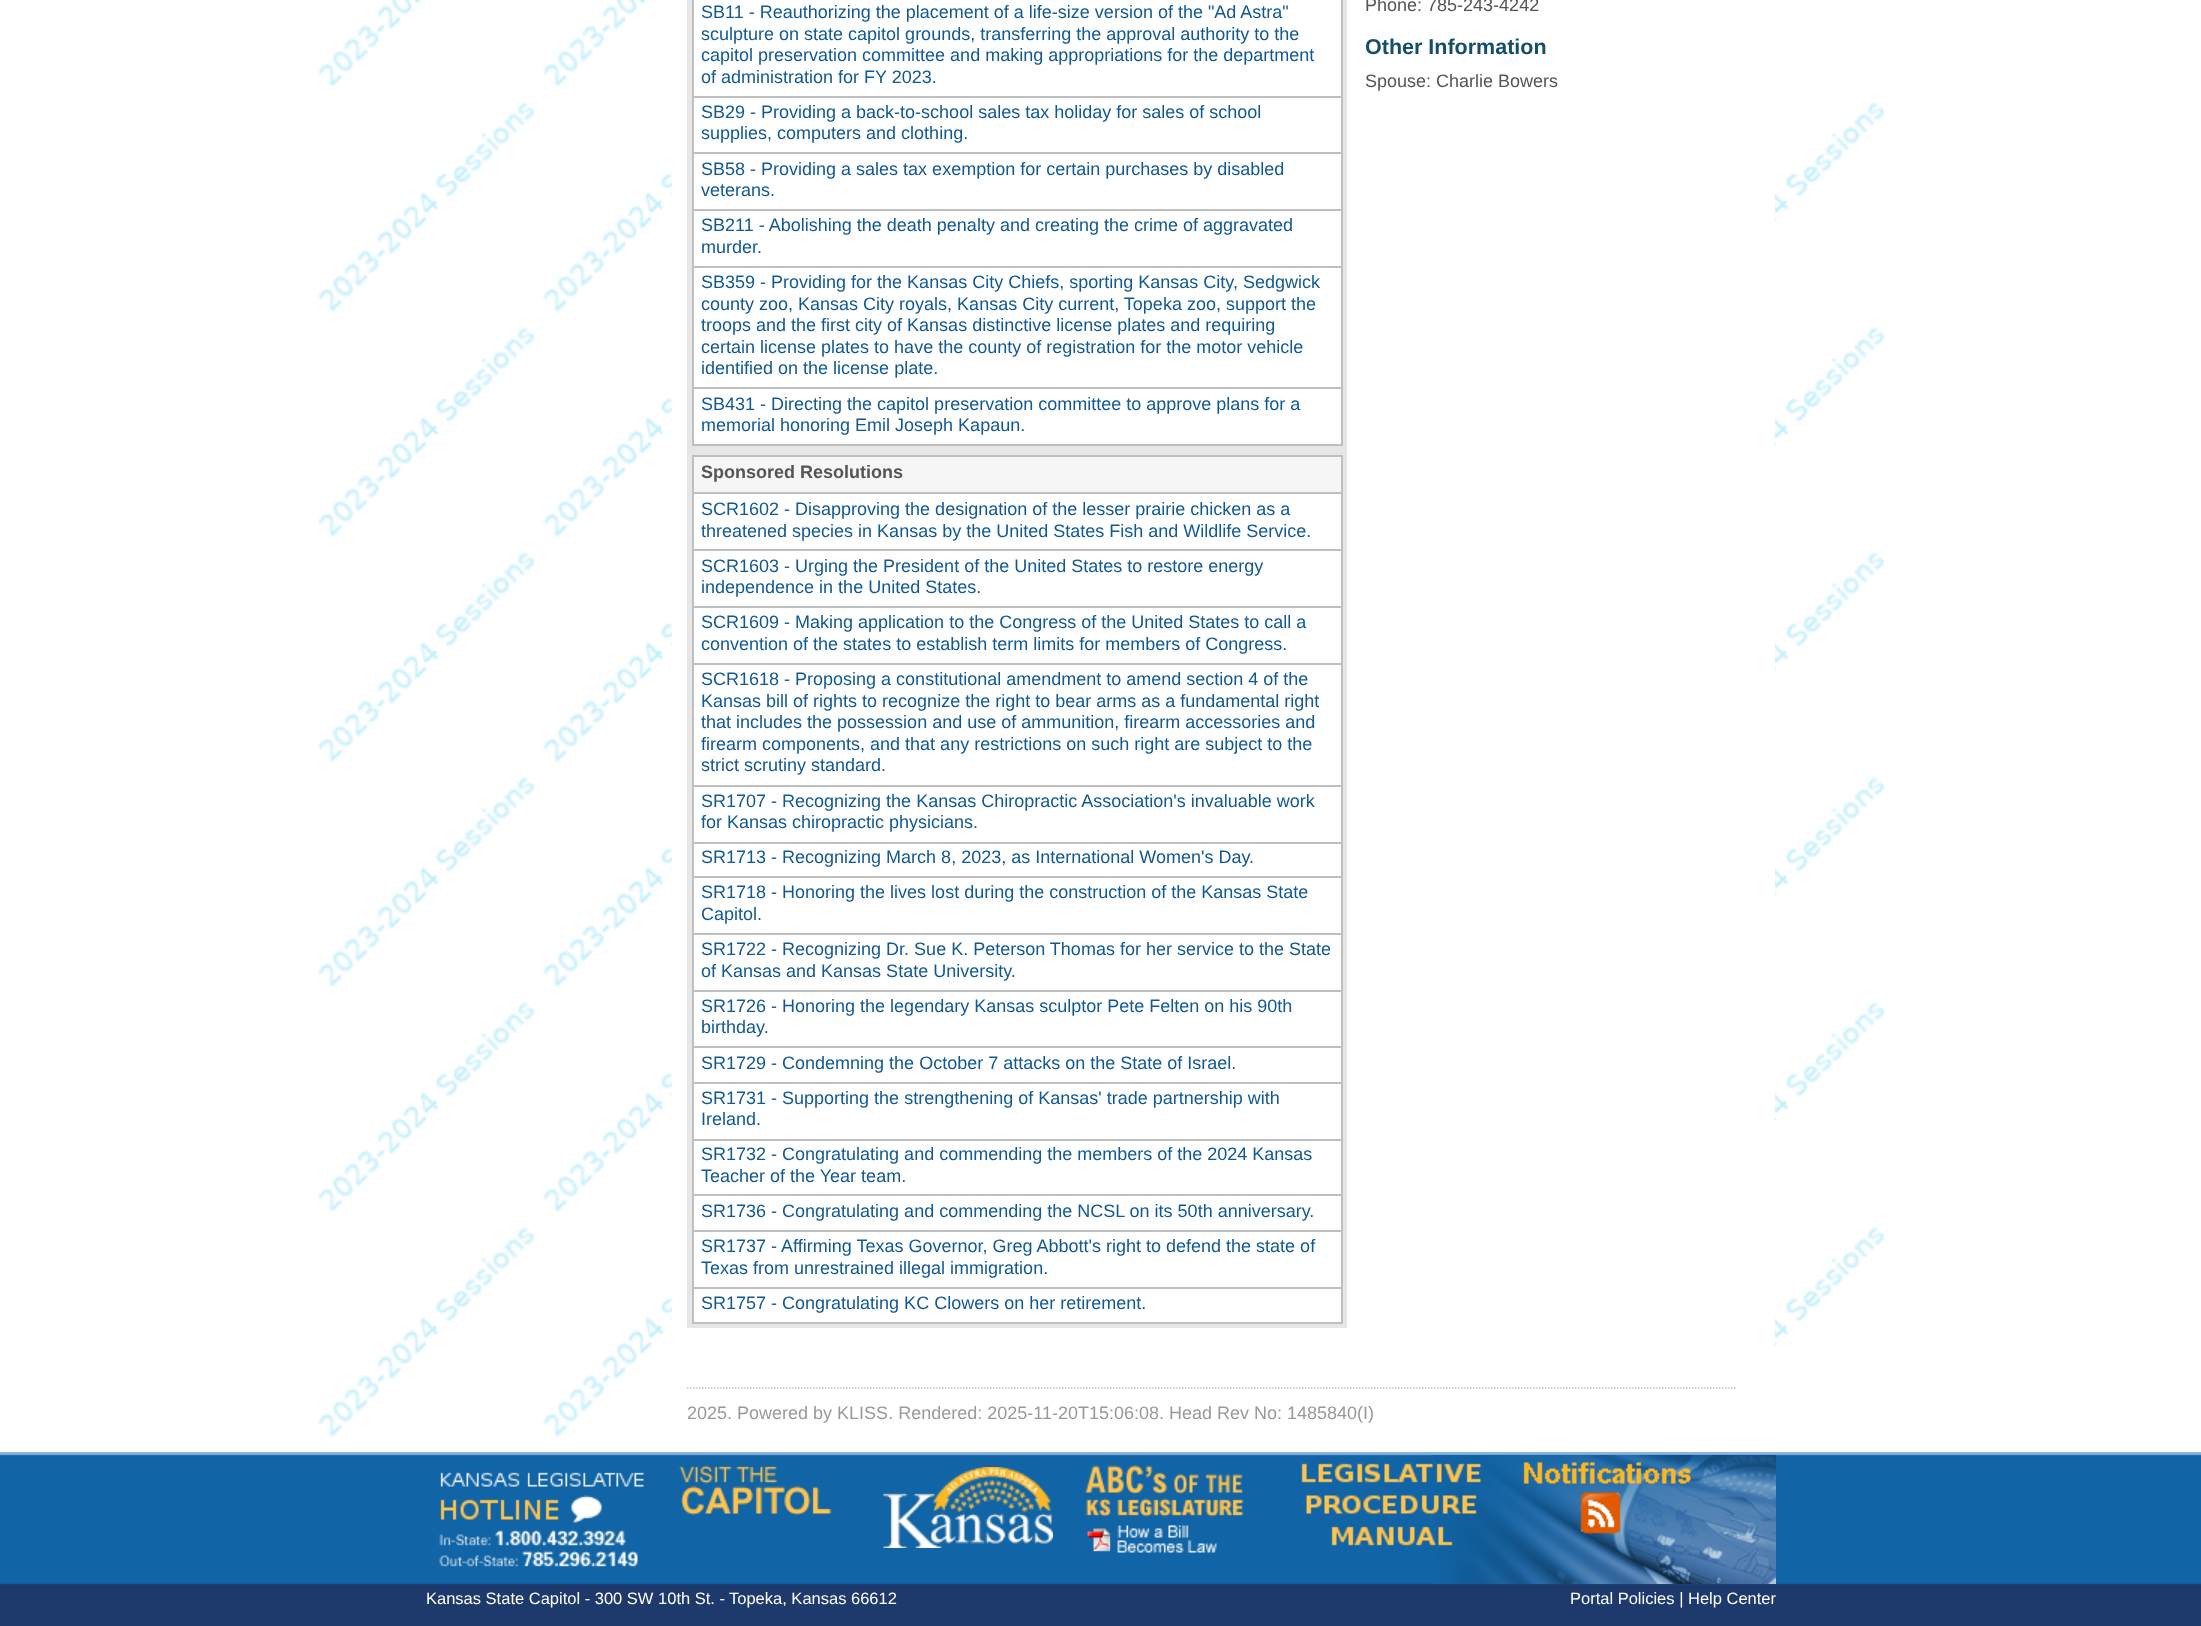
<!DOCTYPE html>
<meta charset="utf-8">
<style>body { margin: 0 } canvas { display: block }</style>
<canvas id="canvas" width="2201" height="1626"></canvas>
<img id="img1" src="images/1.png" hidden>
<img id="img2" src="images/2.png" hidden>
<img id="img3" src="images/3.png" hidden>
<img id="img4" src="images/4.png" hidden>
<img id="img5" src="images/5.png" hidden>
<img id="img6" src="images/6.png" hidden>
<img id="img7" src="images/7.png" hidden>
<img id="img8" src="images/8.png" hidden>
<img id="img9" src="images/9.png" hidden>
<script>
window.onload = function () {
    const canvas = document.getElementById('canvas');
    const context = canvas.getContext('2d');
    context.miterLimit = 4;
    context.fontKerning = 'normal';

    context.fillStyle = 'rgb(255, 255, 255)';
    context.fillRect(0, 0, 2201, 1626);
    context.drawImage(document.getElementById('img1'), 318, 0, 1567, 1437);
    context.fillRect(672, 0, 1103, 1437);
    context.fillStyle = 'rgb(230, 230, 230)';
    context.fillRect(687, 0, 660, 1328);
    context.fillStyle = 'rgb(255, 255, 255)';
    context.fillRect(694, 0, 647, 444);
    context.fillStyle = 'rgb(191, 191, 191)';
    context.fillRect(692, 0, 2, 446);
    context.fillRect(692, 96, 651, 2);
    context.fillRect(692, 152, 651, 2);
    context.fillRect(692, 209, 651, 2);
    context.fillRect(692, 266, 651, 2);
    context.fillRect(692, 387, 651, 2);
    context.fillRect(1341, 387, 2, 59);
    context.fillRect(1341, 266, 2, 123);
    context.fillRect(1341, 209, 2, 58);
    context.fillRect(1341, 152, 2, 58);
    context.fillRect(1341, 0, 2, 153);
    context.fillRect(692, 444, 651, 2);
    context.fillStyle = 'rgb(255, 255, 255)';
    context.fillRect(694, 494, 647, 828);
    context.fillStyle = 'rgb(191, 191, 191)';
    context.fillRect(692, 455, 651, 2);
    context.fillRect(692, 455, 2, 868);
    context.fillStyle = 'rgb(246, 246, 246)';
    context.fillRect(694, 457, 647, 35);
    context.fillStyle = 'rgb(191, 191, 191)';
    context.fillRect(692, 492, 651, 2);
    context.fillRect(692, 549, 651, 2);
    context.fillRect(692, 606, 651, 2);
    context.fillRect(692, 663, 651, 2);
    context.fillRect(692, 785, 651, 2);
    context.fillRect(692, 842, 651, 2);
    context.fillRect(692, 876, 651, 2);
    context.fillRect(692, 933, 651, 2);
    context.fillRect(692, 990, 651, 2);
    context.fillRect(692, 1046, 651, 2);
    context.fillRect(692, 1082, 651, 2);
    context.fillRect(692, 1139, 651, 2);
    context.fillRect(692, 1194, 651, 2);
    context.fillRect(692, 1230, 651, 2);
    context.fillRect(692, 1287, 651, 2);
    context.fillRect(1341, 1287, 2, 36);
    context.fillRect(1341, 1230, 2, 59);
    context.fillRect(1341, 1194, 2, 38);
    context.fillRect(1341, 1139, 2, 57);
    context.fillRect(1341, 1082, 2, 58);
    context.fillRect(1341, 1046, 2, 37);
    context.fillRect(1341, 990, 2, 57);
    context.fillRect(1341, 933, 2, 59);
    context.fillRect(1341, 876, 2, 59);
    context.fillRect(1341, 842, 2, 36);
    context.fillRect(1341, 785, 2, 58);
    context.fillRect(1341, 663, 2, 123);
    context.fillRect(1341, 606, 2, 59);
    context.fillRect(1341, 549, 2, 59);
    context.fillRect(1341, 455, 2, 96);
    context.fillRect(692, 1322, 651, 2);
    context.beginPath();
    context.moveTo(687, 1388);
    context.lineTo(1737, 1388);
    context.strokeStyle = 'rgb(193, 193, 193)';
    context.lineWidth = 1.5;
    context.setLineDash([1.5, 1.5]);
    context.stroke();
    context.fillStyle = 'rgb(30, 57, 107)';
    context.fillRect(0, 1585, 2201, 41);
    context.drawImage(document.getElementById('img2'), 0, 1452, 2201, 133);
    context.drawImage(document.getElementById('img3'), 1431, 1455, 345, 129);
    context.drawImage(document.getElementById('img4'), 439, 1472, 205, 95);
    context.drawImage(document.getElementById('img5'), 679, 1465, 153, 51);
    context.drawImage(document.getElementById('img6'), 883, 1467, 170, 81);
    context.drawImage(document.getElementById('img7'), 1085, 1465, 159, 88);
    context.drawImage(document.getElementById('img8'), 1301, 1463, 180, 83);
    context.drawImage(document.getElementById('img9'), 1523, 1462, 168, 73);
    context.font = '18px Liberation Sans';
    context.fillStyle = 'rgb(17, 89, 148)';
    context.fillText('SB11 - Reauthorizing the placement of a life-size version of the "Ad Astra"', 701, 18);
    context.fillText('sculpture on state capitol grounds, transferring the approval authority to the', 701, 40);
    context.fillText('capitol preservation committee and making appropriations for the department', 701, 61);
    context.fillText('of administration for FY 2023.', 701, 83);
    context.fillText('SB29 - Providing a back-to-school sales tax holiday for sales of school', 701, 118);
    context.fillText('supplies, computers and clothing.', 701, 139);
    context.fillText('SB58 - Providing a sales tax exemption for certain purchases by disabled', 701, 175);
    context.fillText('veterans.', 701, 196);
    context.fillText('SB211 - Abolishing the death penalty and creating the crime of aggravated', 701, 231);
    context.fillText('murder.', 701, 253);
    context.fillText('SB359 - Providing for the Kansas City Chiefs, sporting Kansas City, Sedgwick', 701, 288);
    context.fillText('county zoo, Kansas City royals, Kansas City current, Topeka zoo, support the', 701, 310);
    context.fillText('troops and the first city of Kansas distinctive license plates and requiring', 701, 331);
    context.fillText('certain license plates to have the county of registration for the motor vehicle', 701, 353);
    context.fillText('identified on the license plate.', 701, 374);
    context.fillText('SB431 - Directing the capitol preservation committee to approve plans for a', 701, 410);
    context.fillText('memorial honoring Emil Joseph Kapaun.', 701, 431);
    context.font = 'bold 18px Liberation Sans';
    context.fillStyle = 'rgb(85, 85, 85)';
    context.fillText('Sponsored Resolutions', 701, 478);
    context.font = '18px Liberation Sans';
    context.fillStyle = 'rgb(17, 89, 148)';
    context.fillText('SCR1602 - Disapproving the designation of the lesser prairie chicken as a', 701, 515);
    context.fillText('threatened species in Kansas by the United States Fish and Wildlife Service.', 701, 537);
    context.fillText('SCR1603 - Urging the President of the United States to restore energy', 701, 572);
    context.fillText('independence in the United States.', 701, 593);
    context.fillText('SCR1609 - Making application to the Congress of the United States to call a', 701, 628);
    context.fillText('convention of the states to establish term limits for members of Congress.', 701, 650);
    context.fillText('SCR1618 - Proposing a constitutional amendment to amend section 4 of the', 701, 685);
    context.fillText('Kansas bill of rights to recognize the right to bear arms as a fundamental right', 701, 707);
    context.fillText('that includes the possession and use of ammunition, firearm accessories and', 701, 728);
    context.fillText('firearm components, and that any restrictions on such right are subject to the', 701, 750);
    context.fillText('strict scrutiny standard.', 701, 771);
    context.fillText('SR1707 - Recognizing the Kansas Chiropractic Association\'s invaluable work', 701, 807);
    context.fillText('for Kansas chiropractic physicians.', 701, 828);
    context.fillText('SR1713 - Recognizing March 8, 2023, as International Women\'s Day.', 701, 863);
    context.fillText('SR1718 - Honoring the lives lost during the construction of the Kansas State', 701, 898);
    context.fillText('Capitol.', 701, 920);
    context.fillText('SR1722 - Recognizing Dr. Sue K. Peterson Thomas for her service to the State', 701, 955);
    context.fillText('of Kansas and Kansas State University.', 701, 977);
    context.fillText('SR1726 - Honoring the legendary Kansas sculptor Pete Felten on his 90th', 701, 1012);
    context.fillText('birthday.', 701, 1033);
    context.fillText('SR1729 - Condemning the October 7 attacks on the State of Israel.', 701, 1069);
    context.fillText('SR1731 - Supporting the strengthening of Kansas\' trade partnership with', 701, 1104);
    context.fillText('Ireland.', 701, 1125);
    context.fillText('SR1732 - Congratulating and commending the members of the 2024 Kansas', 701, 1160);
    context.fillText('Teacher of the Year team.', 701, 1182);
    context.fillText('SR1736 - Congratulating and commending the NCSL on its 50th anniversary.', 701, 1217);
    context.fillText('SR1737 - Affirming Texas Governor, Greg Abbott\'s right to defend the state of', 701, 1252);
    context.fillText('Texas from unrestrained illegal immigration.', 701, 1274);
    context.fillText('SR1757 - Congratulating KC Clowers on her retirement.', 701, 1309);
    context.fillStyle = 'rgb(85, 85, 85)';
    context.fillText('Phone: 785-243-4242', 1365, 11);
    context.font = 'bold 21.5px Liberation Sans';
    context.fillStyle = 'rgb(19, 79, 108)';
    context.fillText('Other Information', 1365, 54);
    context.font = '18px Liberation Sans';
    context.fillStyle = 'rgb(85, 85, 85)';
    context.fillText('Spouse: Charlie Bowers', 1365, 87);
    context.fillStyle = 'rgb(153, 153, 153)';
    context.fillText('2025. Powered by KLISS. Rendered: 2025-11-20T15:06:08. Head Rev No: 1485840(I)', 687, 1419);
    context.font = '16.5px Liberation Sans';
    context.fillStyle = 'rgb(255, 255, 255)';
    context.fillText('Kansas State Capitol - 300 SW 10th St. -', 426, 1604);
    context.fillText('Topeka, Kansas 66612', 729, 1604);
    context.fillText('Portal Policies | Help Center', 1570, 1604);
};
</script>
